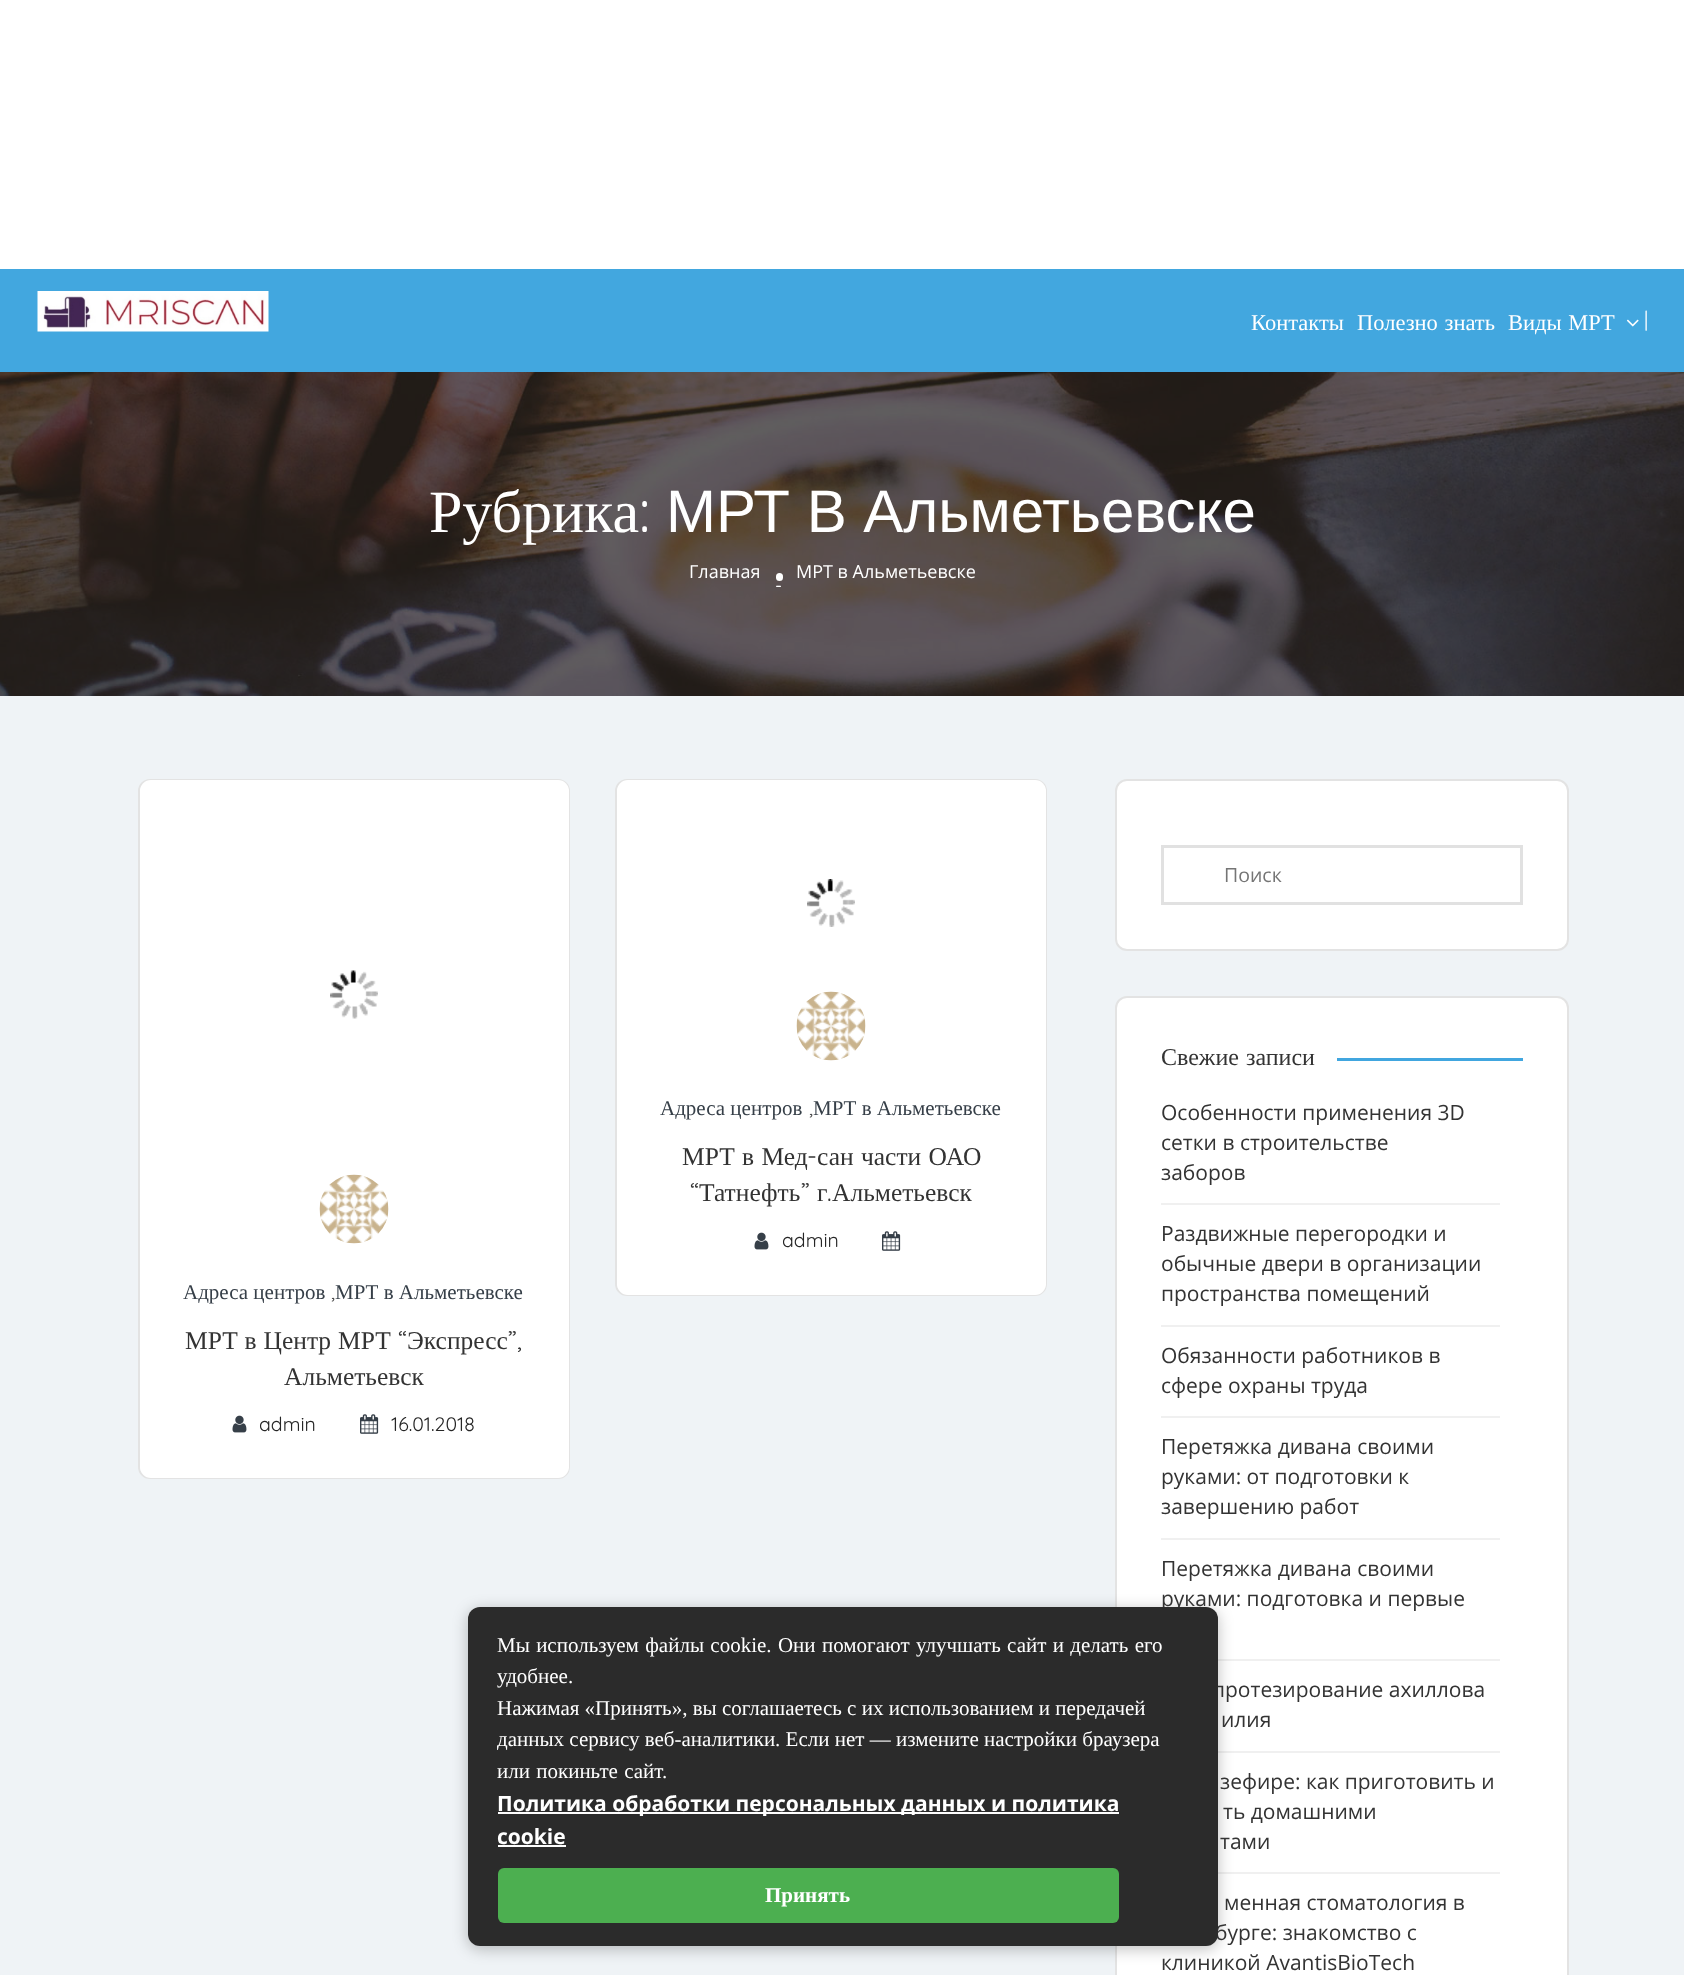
<!DOCTYPE html>
<meta charset="utf-8">
<style>body { margin: 0 } canvas { display: block }</style>
<canvas id="canvas" width="1684" height="1975"></canvas>
<img id="img1" src="images/1.png" hidden>
<img id="img2" src="images/2.png" hidden>
<img id="img3" src="images/3.png" hidden>
<img id="img4" src="images/4.png" hidden>
<img id="img5" src="images/5.png" hidden>
<img id="img6" src="images/6.png" hidden>
<img id="img7" src="images/7.png" hidden>
<img id="img8" src="images/8.png" hidden>
<img id="img9" src="images/9.png" hidden>
<script>
window.onload = function () {
    const canvas = document.getElementById('canvas');
    const context = canvas.getContext('2d');
    context.miterLimit = 4;
    context.fontKerning = 'normal';

    context.fillStyle = 'rgb(255, 255, 255)';
    context.fillRect(0, 0, 1684, 1975);
    context.fillStyle = 'rgb(66, 167, 223)';
    context.fillRect(0, 269, 1684, 103);
    context.drawImage(document.getElementById('img1'), 37, 291, 232, 41);
    context.drawImage(document.getElementById('img2'), 1626, 319, 13, 8);
    context.drawImage(document.getElementById('img3'), 0, 372, 1684, 324);
    context.fillStyle = 'rgb(255, 255, 255)';
    context.beginPath();
    context.roundRect(776, 573, 7, 8, 3.5);
    context.fill();
    context.fillStyle = 'rgb(239, 243, 246)';
    context.fillRect(0, 696, 1684, 1279);
    context.beginPath();
    context.roundRect(616, 780, 430, 515, 11);
    context.strokeStyle = 'rgb(227, 227, 227)';
    context.lineWidth = 2;
    context.stroke();
    context.fillStyle = 'rgb(255, 255, 255)';
    context.beginPath();
    context.roundRect(617, 780, 429, 246, [11, 11, 0, 0]);
    context.fill();
    context.drawImage(document.getElementById('img4'), 807, 879, 48, 48);
    context.beginPath();
    context.roundRect(617, 1026, 429, 269, [0, 0, 11, 11]);
    context.fill();
    context.drawImage(document.getElementById('img5'), 796, 991, 70, 70);
    context.drawImage(document.getElementById('img6'), 754, 1232, 15, 18);
    context.drawImage(document.getElementById('img7'), 882, 1231, 19, 20);
    context.beginPath();
    context.roundRect(139, 780, 430, 698, 11);
    context.stroke();
    context.beginPath();
    context.roundRect(140, 780, 429, 429, [11, 11, 0, 0]);
    context.fill();
    context.drawImage(document.getElementById('img8'), 330, 970, 48, 49);
    context.beginPath();
    context.roundRect(140, 1209, 429, 269, [0, 0, 11, 11]);
    context.fill();
    context.drawImage(document.getElementById('img9'), 319, 1174, 70, 70);
    context.drawImage(document.getElementById('img6'), 232, 1415, 15, 18);
    context.drawImage(document.getElementById('img7'), 360, 1414, 19, 20);
    context.beginPath();
    context.roundRect(1116, 780, 452, 170, 11);
    context.fill();
    context.stroke();
    context.strokeStyle = 'rgb(225, 225, 225)';
    context.lineWidth = 3;
    context.strokeRect(1162.5, 846.5, 359, 57);
    context.beginPath();
    context.roundRect(1116, 997, 452, 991, 11);
    context.fill();
    context.strokeStyle = 'rgb(227, 227, 227)';
    context.lineWidth = 2;
    context.stroke();
    context.fillStyle = 'rgb(65, 166, 223)';
    context.fillRect(1337, 1058, 186, 3);
    context.fillStyle = 'rgb(240, 240, 240)';
    context.fillRect(1161, 1203, 339, 2);
    context.fillRect(1161, 1325, 339, 2);
    context.fillRect(1161, 1416, 339, 2);
    context.fillRect(1161, 1538, 339, 2);
    context.fillRect(1218, 1659, 282, 2);
    context.fillRect(1218, 1751, 282, 2);
    context.fillRect(1218, 1872, 282, 2);
    context.fillStyle = 'rgba(0, 0, 0, 0.25)';
    context.filter = 'blur(7.5px)';
    context.beginPath();
    context.roundRect(468, 1610, 750, 339, 12);
    context.fill();
    context.filter = 'none';
    context.font = '22.5px Liberation Serif';
    context.fillStyle = 'rgb(255, 255, 255)';
    context.fillText('Контакты', 1251, 330);
    context.wordSpacing = '1px';
    context.fillText('Полезно знать', 1357, 330);
    context.fillText('Виды МРТ', 1508, 330);
    context.wordSpacing = '0px';
    context.font = '300 21px Quicksand';
    context.fillText('|', 1644, 327);
    context.font = '60px Liberation Serif';
    context.fillText('Рубрика', 429, 532);
    context.font = '300 60px Quicksand';
    context.fillText(':', 639, 532);
    context.font = '60px Liberation Sans';
    context.fillText('МРТ В Альметьевске', 666, 532);
    context.font = '18px Open Sans';
    context.fillText('Главная', 689, 578);
    context.fillText('МРТ в Альметьевске', 796, 578);
    context.font = '300 18px Quicksand';
    context.fillText('-', 775, 592);
    context.font = '21px Liberation Serif';
    context.fillStyle = 'rgb(54, 63, 72)';
    context.fillText('Адреса центров', 660, 1115);
    context.font = '300 21px Quicksand';
    context.fillStyle = 'rgb(76, 76, 76)';
    context.fillText(',', 809, 1115);
    context.font = '21px Liberation Serif';
    context.fillStyle = 'rgb(54, 63, 72)';
    context.fillText('МРТ в Альметьевске', 813, 1115);
    context.wordSpacing = '1px';
    context.font = '25.5px Liberation Serif';
    context.fillStyle = 'rgb(51, 51, 51)';
    context.fillText('МРТ в Мед', 682, 1165);
    context.wordSpacing = '0px';
    context.font = '300 25.5px Quicksand';
    context.fillText('-', 807, 1165);
    context.wordSpacing = '1px';
    context.font = '25.5px Liberation Serif';
    context.fillText('сан части ОАО', 817, 1165);
    context.wordSpacing = '0px';
    context.font = '300 25.5px Quicksand';
    context.fillText('“', 690, 1201);
    context.font = '25.5px Liberation Serif';
    context.fillText('Татнефть', 699, 1201);
    context.font = '300 25.5px Quicksand';
    context.fillText('”', 801, 1201);
    context.font = '25.5px Liberation Serif';
    context.fillText('г', 817, 1201);
    context.font = '300 25.5px Quicksand';
    context.fillText('.', 827, 1201);
    context.font = '25.5px Liberation Serif';
    context.fillText('Альметьевск', 832, 1201);
    context.font = '300 19.5px Quicksand';
    context.fillStyle = 'rgb(38, 38, 38)';
    context.fillText('admin', 782, 1247);
    context.font = '21px Liberation Serif';
    context.fillStyle = 'rgb(54, 63, 72)';
    context.fillText('Адреса центров', 183, 1299);
    context.font = '300 21px Quicksand';
    context.fillStyle = 'rgb(76, 76, 76)';
    context.fillText(',', 331, 1299);
    context.font = '21px Liberation Serif';
    context.fillStyle = 'rgb(54, 63, 72)';
    context.fillText('МРТ в Альметьевске', 335, 1299);
    context.wordSpacing = '0.5px';
    context.font = '25.5px Liberation Serif';
    context.fillStyle = 'rgb(51, 51, 51)';
    context.fillText('МРТ в Центр МРТ', 185, 1349);
    context.wordSpacing = '0px';
    context.font = '300 25.5px Quicksand';
    context.fillText('“', 398, 1349);
    context.font = '25.5px Liberation Serif';
    context.fillText('Экспресс', 407, 1349);
    context.font = '300 25.5px Quicksand';
    context.fillText('”,', 508, 1349);
    context.font = '25.5px Liberation Serif';
    context.fillText('Альметьевск', 284, 1385);
    context.font = '300 19.5px Quicksand';
    context.fillStyle = 'rgb(38, 38, 38)';
    context.fillText('admin', 259, 1431);
    context.fillText('16.01.2018', 391, 1431);
    context.font = '19.5px Open Sans';
    context.fillStyle = 'rgb(117, 117, 117)';
    context.fillText('Поиск', 1224, 882);
    context.wordSpacing = '1px';
    context.font = '24px Liberation Serif';
    context.fillStyle = 'rgb(51, 51, 51)';
    context.fillText('Свежие записи', 1161, 1065);
    context.wordSpacing = '0px';
    context.font = '21px Open Sans';
    context.fillText('Особенности применения 3D', 1161, 1120);
    context.fillText('сетки в строительстве', 1161, 1150);
    context.fillText('заборов', 1161, 1180);
    context.fillText('Раздвижные перегородки и', 1161, 1241);
    context.fillText('обычные двери в организации', 1161, 1271);
    context.fillText('пространства помещений', 1161, 1301);
    context.fillText('Обязанности работников в', 1161, 1363);
    context.fillText('сфере охраны труда', 1161, 1393);
    context.fillText('Перетяжка дивана своими', 1161, 1454);
    context.fillText('руками: от подготовки к', 1161, 1484);
    context.fillText('завершению работ', 1161, 1514);
    context.fillText('Перетяжка дивана своими', 1161, 1576);
    context.fillText('руками: подготовка и первые', 1161, 1606);
    context.fillText('протезирование ахиллова', 1212, 1697);
    context.fillText('илия', 1221, 1727);
    context.fillText('зефире: как приготовить и', 1220, 1789);
    context.fillText('ть домашними', 1223, 1819);
    context.fillText('тами', 1220, 1849);
    context.fillText('менная стоматология в', 1224, 1910);
    context.fillText('бурге: знакомство с', 1215, 1940);
    context.fillText('клиникой AvantisBioTech', 1161, 1970);
    context.fillStyle = 'rgb(43, 43, 43)';
    context.beginPath();
    context.roundRect(468, 1607, 750, 339, 12);
    context.fill();
    context.wordSpacing = '1.1px';
    context.font = '21px Liberation Serif';
    context.fillStyle = 'rgb(255, 255, 255)';
    context.fillText('Мы используем файлы cookie. Они помогают улучшать сайт и делать его', 497, 1652);
    context.wordSpacing = '0px';
    context.fillText('удобнее.', 497, 1683);
    context.fillText('Нажимая «Принять», вы соглашаетесь с их использованием и передачей', 497, 1715);
    context.fillText('данных сервису веб-аналитики. Если нет — измените настройки браузера', 497, 1746);
    context.wordSpacing = '1px';
    context.fillText('или покиньте сайт.', 497, 1778);
    context.fillStyle = 'rgb(254, 254, 254)';
    context.fillRect(498, 1812, 621, 2);
    context.wordSpacing = '0px';
    context.font = 'bold 21px Open Sans';
    context.fillStyle = 'rgb(255, 255, 255)';
    context.fillText('Политика обработки персональных данных и политика', 497, 1811);
    context.fillText('cookie', 497, 1844);
    context.fillStyle = 'rgb(254, 254, 254)';
    context.fillRect(498, 1845, 68, 2);
    context.fillStyle = 'rgb(76, 175, 80)';
    context.beginPath();
    context.roundRect(498, 1868, 621, 55, 6);
    context.fill();
    context.font = 'bold 21px Liberation Serif';
    context.fillStyle = 'rgb(255, 255, 255)';
    context.fillText('Принять', 765, 1902);
};
</script>
